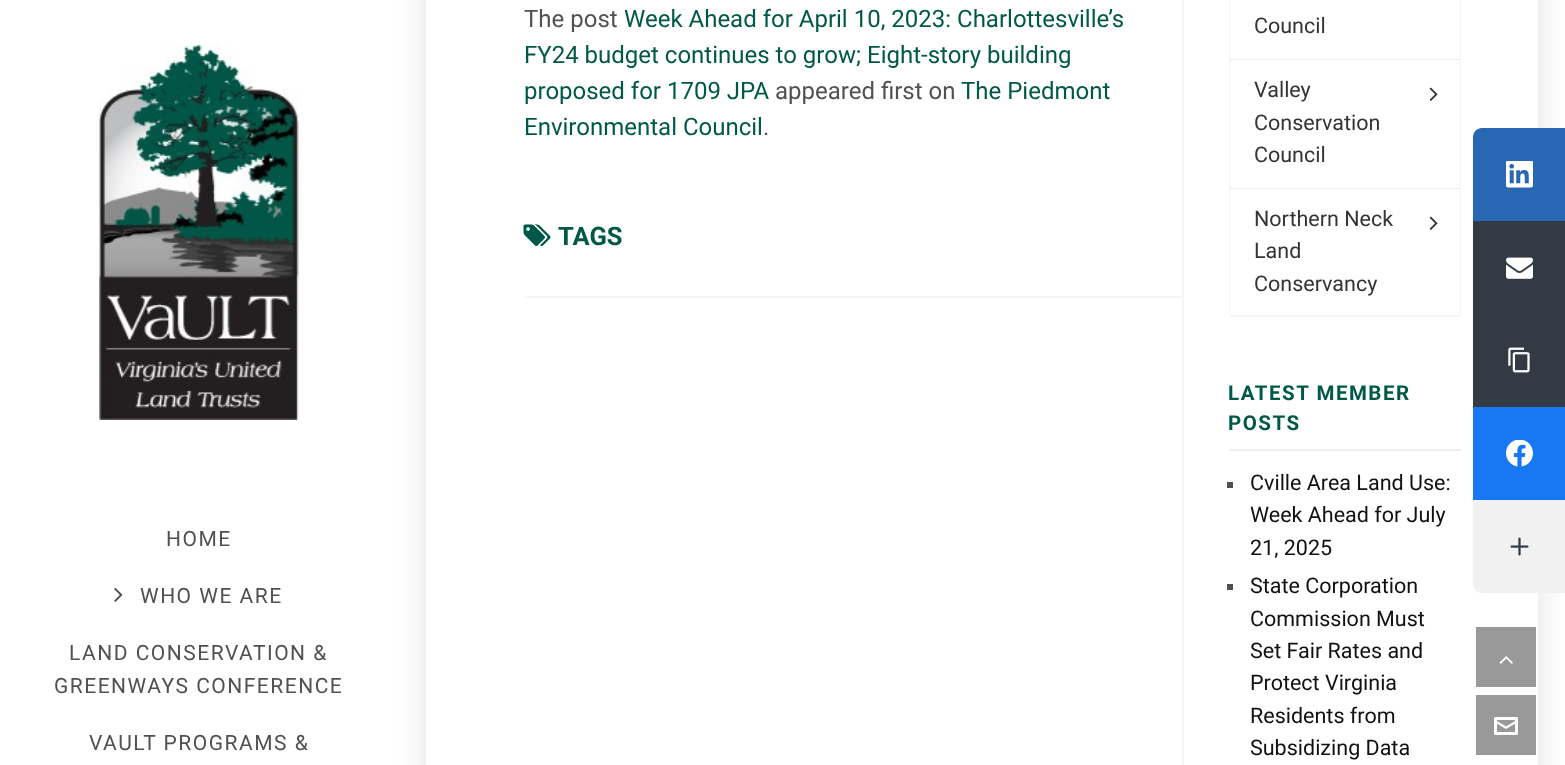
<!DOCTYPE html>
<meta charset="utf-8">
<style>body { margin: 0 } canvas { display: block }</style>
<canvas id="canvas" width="1565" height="765"></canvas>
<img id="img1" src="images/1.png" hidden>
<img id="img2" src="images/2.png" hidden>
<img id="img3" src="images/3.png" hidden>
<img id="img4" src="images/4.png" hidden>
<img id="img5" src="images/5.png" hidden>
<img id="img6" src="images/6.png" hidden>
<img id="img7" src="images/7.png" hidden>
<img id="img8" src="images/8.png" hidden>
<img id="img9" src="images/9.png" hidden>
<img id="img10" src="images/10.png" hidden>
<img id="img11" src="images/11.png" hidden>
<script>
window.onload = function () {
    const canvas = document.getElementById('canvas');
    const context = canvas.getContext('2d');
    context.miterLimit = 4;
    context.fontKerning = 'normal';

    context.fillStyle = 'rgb(255, 255, 255)';
    context.fillRect(0, 0, 1565, 765);
    context.fillStyle = 'rgba(16, 16, 16, 0.13)';
    context.filter = 'blur(15px)';
    context.beginPath();
    context.rect(426, -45, 1112, 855);
    context.fill();
    context.filter = 'none';
    context.fillStyle = 'rgb(255, 255, 255)';
    context.fillRect(426, 0, 1112, 765);
    context.drawImage(document.getElementById('img1'), 523, 224, 28, 22);
    context.fillStyle = 'rgb(247, 245, 242)';
    context.fillRect(524, 296, 658, 2);
    context.fillRect(1182, 0, 2, 765);
    context.beginPath();
    context.roundRect(1230, -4, 230, 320, 2);
    context.strokeStyle = 'rgb(247, 245, 242)';
    context.lineWidth = 2;
    context.stroke();
    context.fillStyle = 'rgb(255, 255, 255)';
    context.fillRect(1230, 0, 230, 59);
    context.fillStyle = 'rgba(0, 0, 0, 0.07)';
    context.fillRect(1230, 59, 230, 1);
    context.fillStyle = 'rgb(255, 255, 255)';
    context.fillRect(1230, 60, 230, 128);
    context.drawImage(document.getElementById('img2'), 1429, 87, 9, 14);
    context.fillStyle = 'rgba(0, 0, 0, 0.07)';
    context.fillRect(1230, 188, 230, 1);
    context.fillStyle = 'rgb(255, 255, 255)';
    context.fillRect(1230, 189, 230, 126);
    context.drawImage(document.getElementById('img2'), 1429, 216, 9, 14);
    context.fillStyle = 'rgb(238, 238, 238)';
    context.fillRect(1229, 449, 232, 2);
    context.fillStyle = 'rgb(81, 81, 81)';
    context.fillRect(1227, 482, 6, 6);
    context.fillRect(1227, 584, 6, 6);
    context.fillStyle = 'rgb(153, 153, 153)';
    context.fillRect(1476, 627, 60, 60);
    context.drawImage(document.getElementById('img3'), 1499, 656, 14, 8);
    context.fillRect(1476, 695, 60, 60);
    context.drawImage(document.getElementById('img4'), 1494, 717, 24, 18);
    context.fillStyle = 'rgb(40, 103, 178)';
    context.beginPath();
    context.moveTo(1482, 128);
    context.lineTo(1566, 128);
    context.lineTo(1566, 221);
    context.lineTo(1473, 221);
    context.lineTo(1473, 137);
    context.bezierCurveTo(1473, 132, 1477, 128, 1482, 128);
    context.closePath();
    context.fill();
    context.drawImage(document.getElementById('img5'), 1506, 161, 27, 27);
    context.fillStyle = 'rgb(50, 59, 67)';
    context.fillRect(1473, 221, 92, 186);
    context.drawImage(document.getElementById('img6'), 1506, 257, 27, 22);
    context.drawImage(document.getElementById('img7'), 1508, 347, 22, 26);
    context.fillStyle = 'rgb(24, 119, 242)';
    context.fillRect(1473, 407, 92, 93);
    context.drawImage(document.getElementById('img8'), 1506, 440, 27, 27);
    context.fillStyle = 'rgb(241, 241, 241)';
    context.beginPath();
    context.moveTo(1473, 500);
    context.lineTo(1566, 500);
    context.lineTo(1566, 593);
    context.lineTo(1482, 593);
    context.bezierCurveTo(1477, 593, 1473, 589, 1473, 584);
    context.closePath();
    context.fill();
    context.drawImage(document.getElementById('img9'), 1510, 537, 19, 19);
    context.drawImage(document.getElementById('img10'), 99, 45, 200, 375);
    context.drawImage(document.getElementById('img11'), 114, 587, 9, 15);
    context.font = '24px Roboto';
    context.fillStyle = 'rgb(81, 81, 81)';
    context.fillText('The post', 524, 27);
    context.fillStyle = 'rgb(0, 89, 71)';
    context.fillText('Week Ahead for April 10, 2023: Charlottesville’s', 624, 27);
    context.fillText('FY24 budget continues to grow; Eight-story building', 524, 63);
    context.fillText('proposed for 1709 JPA', 524, 99);
    context.fillStyle = 'rgb(81, 81, 81)';
    context.fillText('appeared first on', 775, 99);
    context.fillStyle = 'rgb(0, 89, 71)';
    context.fillText('The Piedmont', 961, 99);
    context.fillText('Environmental Council', 524, 135);
    context.fillStyle = 'rgb(81, 81, 81)';
    context.fillText('.', 763, 135);
    context.font = 'bold 25.5px Roboto';
    context.fillStyle = 'rgb(0, 89, 71)';
    context.fillText('TAGS', 558, 245);
    context.font = '21.5px Roboto';
    context.fillStyle = 'rgb(50, 52, 54)';
    context.fillText('Council', 1254, 33);
    context.fillText('Valley', 1254, 97);
    context.fillText('Conservation', 1254, 130);
    context.fillText('Council', 1254, 162);
    context.fillText('Northern Neck', 1254, 226);
    context.fillText('Land', 1254, 258);
    context.fillText('Conservancy', 1254, 291);
    context.letterSpacing = '1.5px';
    context.font = 'bold 20.5px Roboto';
    context.fillStyle = 'rgb(0, 89, 71)';
    context.fillText('LATEST MEMBER', 1228, 400);
    context.fillText('POSTS', 1228, 430);
    context.letterSpacing = '0px';
    context.font = '21.5px Roboto';
    context.fillStyle = 'rgb(17, 17, 17)';
    context.fillText('Cville Area Land Use:', 1250, 490);
    context.fillText('Week Ahead for July', 1250, 522);
    context.fillText('21, 2025', 1250, 555);
    context.fillText('State Corporation', 1250, 593);
    context.fillText('Commission Must', 1250, 626);
    context.fillText('Set Fair Rates and', 1250, 658);
    context.fillText('Protect Virginia', 1250, 690);
    context.fillText('Residents from', 1250, 723);
    context.fillText('Subsidizing Data', 1250, 755);
    context.letterSpacing = '1.5px';
    context.font = '21px Roboto';
    context.fillStyle = 'rgb(81, 81, 81)';
    context.fillText('HOME', 166, 546);
    context.fillText('WHO WE ARE', 140, 603);
    context.fillText('LAND CONSERVATION &', 69, 660);
    context.fillText('GREENWAYS CONFERENCE', 54, 693);
    context.fillText('VAULT PROGRAMS &', 89, 750);
};
</script>
